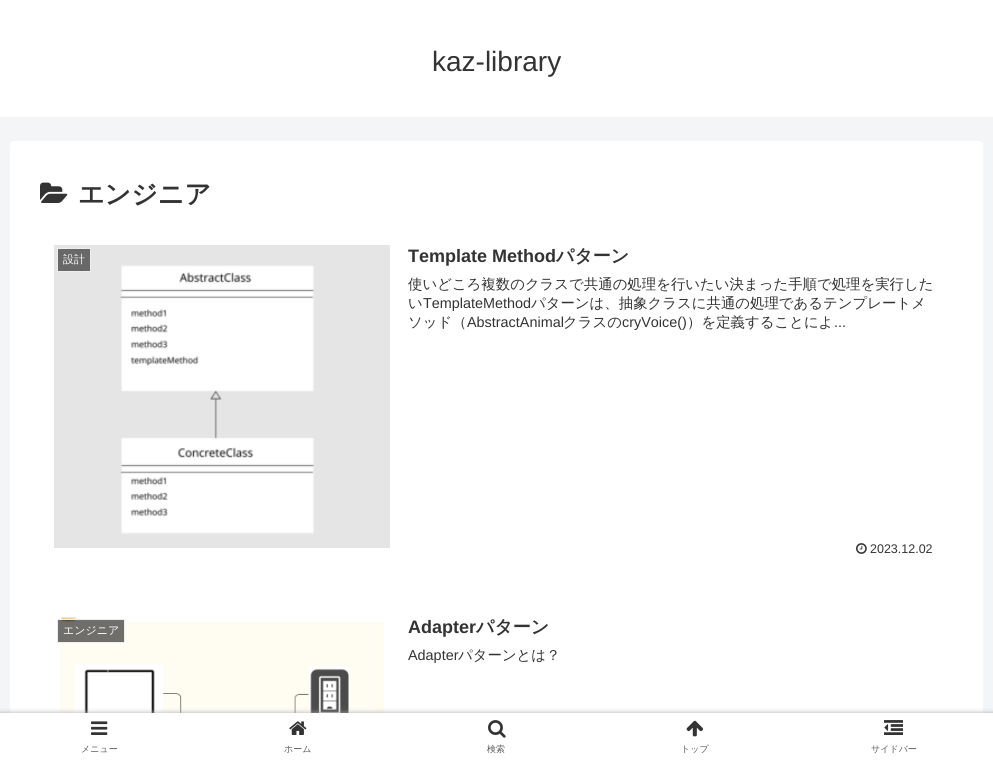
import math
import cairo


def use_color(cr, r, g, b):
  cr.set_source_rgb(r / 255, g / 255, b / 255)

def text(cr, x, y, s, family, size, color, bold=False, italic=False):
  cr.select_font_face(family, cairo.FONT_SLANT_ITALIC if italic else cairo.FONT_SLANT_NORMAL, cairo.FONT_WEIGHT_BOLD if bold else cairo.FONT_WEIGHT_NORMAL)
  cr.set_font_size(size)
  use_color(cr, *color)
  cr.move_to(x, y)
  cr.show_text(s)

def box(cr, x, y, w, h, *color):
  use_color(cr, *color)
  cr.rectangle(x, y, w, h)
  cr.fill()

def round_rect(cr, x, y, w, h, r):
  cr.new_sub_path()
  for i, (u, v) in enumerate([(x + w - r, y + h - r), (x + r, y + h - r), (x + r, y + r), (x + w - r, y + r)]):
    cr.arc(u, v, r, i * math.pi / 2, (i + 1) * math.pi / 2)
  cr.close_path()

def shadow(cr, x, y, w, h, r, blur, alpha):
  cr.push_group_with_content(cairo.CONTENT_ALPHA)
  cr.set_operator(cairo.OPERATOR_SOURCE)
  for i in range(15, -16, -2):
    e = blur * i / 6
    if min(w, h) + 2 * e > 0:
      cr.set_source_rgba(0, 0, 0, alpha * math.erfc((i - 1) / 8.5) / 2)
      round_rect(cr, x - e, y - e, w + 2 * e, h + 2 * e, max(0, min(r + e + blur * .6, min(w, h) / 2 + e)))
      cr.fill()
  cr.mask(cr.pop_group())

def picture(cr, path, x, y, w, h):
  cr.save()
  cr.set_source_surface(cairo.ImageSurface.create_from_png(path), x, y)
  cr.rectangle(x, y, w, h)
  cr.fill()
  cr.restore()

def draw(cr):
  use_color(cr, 244, 245, 247)
  cr.paint()
  box(cr, 0, 0, 993, 117, 255, 255, 255)
  round_rect(cr, 10, 141, 973, 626, 4)
  cr.fill()
  picture(cr, "img_01.png", 40, 182, 28, 21)
  picture(cr, "img_02.png", 54, 245, 336, 303)
  use_color(cr, 104, 104, 104)
  cr.rectangle(57.5, 248.5, 33, 23)
  cr.fill_preserve()
  use_color(cr, 238, 238, 238)
  cr.set_line_width(1)
  cr.stroke()
  picture(cr, "img_03.png", 856, 543, 11, 11)
  picture(cr, "img_04.png", 60, 616, 324, 97)
  cr.set_source_rgba(0.2, 0.2, 0.2, 0.7)
  cr.rectangle(57.5, 619.5, 67, 23)
  cr.fill_preserve()
  use_color(cr, 238, 238, 238)
  cr.stroke()
  use_color(cr, 169, 169, 169)
  shadow(cr, 0, 713, 993, 50, 0, 2.5, 1)
  box(cr, 0, 713, 993, 50, 255, 255, 255)
  picture(cr, "img_05.png", 91, 721, 17, 14)
  picture(cr, "img_06.png", 289, 721, 18, 14)
  picture(cr, "img_07.png", 488, 720, 18, 18)
  picture(cr, "img_08.png", 686, 720, 17, 17)
  picture(cr, "img_09.png", 884, 720, 19, 15)
  text(cr, 432, 71, "kaz-library", "Liberation Sans", 28, (51, 51, 51))
  text(cr, 78, 203, "エンジニア", "WenQuanYi Zen Hei", 26, (51, 51, 51), bold=True)
  text(cr, 63, 263, "設計", "WenQuanYi Zen Hei Medium", 11, (255, 255, 255))
  text(cr, 408, 262, "Template Method", "Liberation Sans", 18, (51, 51, 51), bold=True)
  text(cr, 556, 262, "パターン", "WenQuanYi Zen Hei", 18, (51, 51, 51), bold=True)
  text(cr, 408, 289, "使いどころ複数のクラスで共通の処理を行いたい決まった手順で処理を実行した", "WenQuanYi Zen Hei Medium", 14.4, (51, 51, 51))
  text(cr, 408, 308, "い", "WenQuanYi Zen Hei Medium", 14.4, (51, 51, 51))
  text(cr, 423, 308, "TemplateMethod", "Liberation Sans", 14.4, (51, 51, 51))
  text(cr, 531, 308, "パターンは、抽象クラスに共通の処理であるテンプレートメ", "WenQuanYi Zen Hei Medium", 14.4, (51, 51, 51))
  text(cr, 408, 327, "ソッド（", "WenQuanYi Zen Hei Medium", 14.4, (51, 51, 51))
  text(cr, 467, 327, "AbstractAnimal", "Liberation Sans", 14.4, (51, 51, 51))
  text(cr, 563, 327, "クラスの", "WenQuanYi Zen Hei Medium", 14.4, (51, 51, 51))
  text(cr, 622, 327, "cryVoice()", "Liberation Sans", 14.4, (51, 51, 51))
  text(cr, 687, 327, "）を定義することによ", "WenQuanYi Zen Hei Medium", 14.4, (51, 51, 51))
  text(cr, 834, 327, "...", "Liberation Sans", 14.4, (51, 51, 51))
  text(cr, 870, 553, "2023.12.02", "Liberation Sans", 12.5, (51, 51, 51))
  text(cr, 63, 634, "エンジニア", "WenQuanYi Zen Hei Medium", 11, (255, 255, 255))
  text(cr, 408, 633, "Adapter", "Liberation Sans", 18, (51, 51, 51), bold=True)
  text(cr, 476, 633, "パターン", "WenQuanYi Zen Hei", 18, (51, 51, 51), bold=True)
  text(cr, 408, 660, "Adapter", "Liberation Sans", 14.4, (51, 51, 51))
  text(cr, 458, 660, "パターンとは？", "WenQuanYi Zen Hei Medium", 14.4, (51, 51, 51))
  text(cr, 81, 752, "メニュー", "WenQuanYi Zen Hei Medium", 9, (92, 92, 92))
  text(cr, 284, 752, "ホーム", "WenQuanYi Zen Hei Medium", 9, (92, 92, 92))
  text(cr, 487, 752, "検索", "WenQuanYi Zen Hei Medium", 9, (92, 92, 92))
  text(cr, 681, 752, "トップ", "WenQuanYi Zen Hei Medium", 9, (92, 92, 92))
  text(cr, 871, 752, "サイドバー", "WenQuanYi Zen Hei Medium", 9, (92, 92, 92))


surface = cairo.ImageSurface(cairo.FORMAT_RGB24, 993, 763)
cr = cairo.Context(surface)
options = cairo.FontOptions()
options.set_hint_metrics(cairo.HINT_METRICS_OFF)
options.set_hint_style(cairo.HINT_STYLE_NONE)
cr.set_font_options(options)
cr.set_miter_limit(4)
draw(cr)
surface.write_to_png("out.png")
